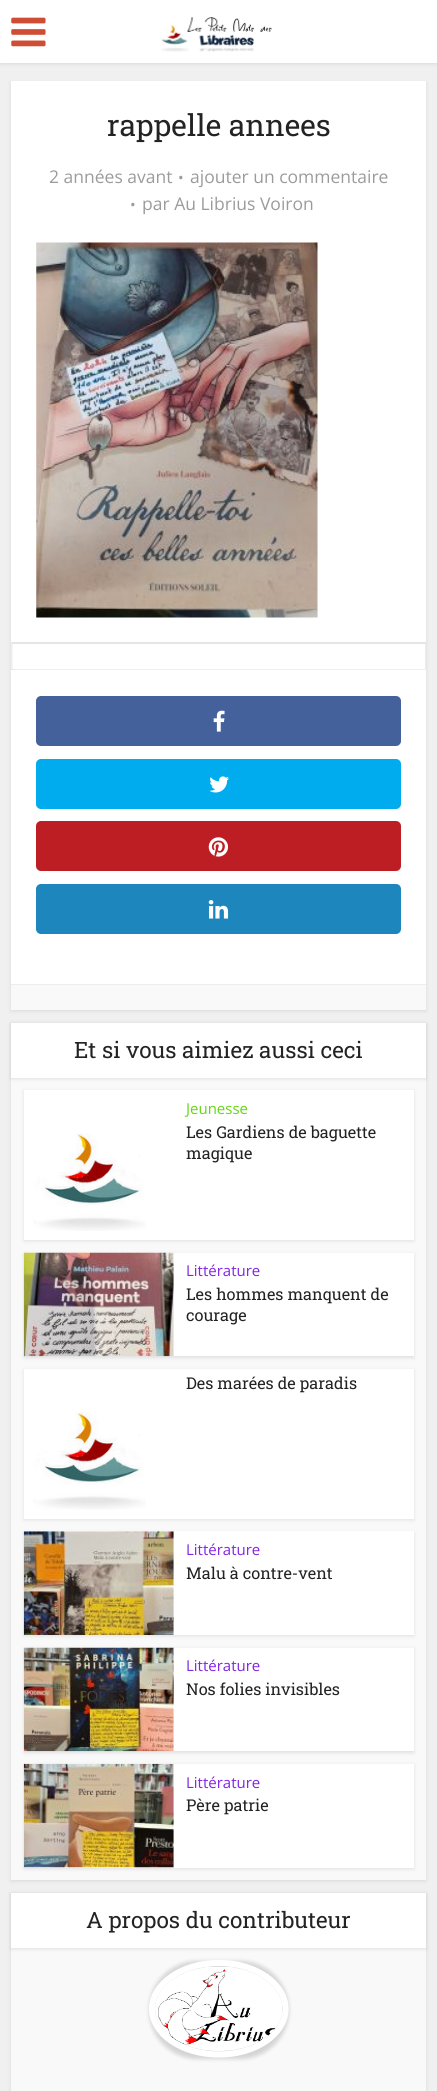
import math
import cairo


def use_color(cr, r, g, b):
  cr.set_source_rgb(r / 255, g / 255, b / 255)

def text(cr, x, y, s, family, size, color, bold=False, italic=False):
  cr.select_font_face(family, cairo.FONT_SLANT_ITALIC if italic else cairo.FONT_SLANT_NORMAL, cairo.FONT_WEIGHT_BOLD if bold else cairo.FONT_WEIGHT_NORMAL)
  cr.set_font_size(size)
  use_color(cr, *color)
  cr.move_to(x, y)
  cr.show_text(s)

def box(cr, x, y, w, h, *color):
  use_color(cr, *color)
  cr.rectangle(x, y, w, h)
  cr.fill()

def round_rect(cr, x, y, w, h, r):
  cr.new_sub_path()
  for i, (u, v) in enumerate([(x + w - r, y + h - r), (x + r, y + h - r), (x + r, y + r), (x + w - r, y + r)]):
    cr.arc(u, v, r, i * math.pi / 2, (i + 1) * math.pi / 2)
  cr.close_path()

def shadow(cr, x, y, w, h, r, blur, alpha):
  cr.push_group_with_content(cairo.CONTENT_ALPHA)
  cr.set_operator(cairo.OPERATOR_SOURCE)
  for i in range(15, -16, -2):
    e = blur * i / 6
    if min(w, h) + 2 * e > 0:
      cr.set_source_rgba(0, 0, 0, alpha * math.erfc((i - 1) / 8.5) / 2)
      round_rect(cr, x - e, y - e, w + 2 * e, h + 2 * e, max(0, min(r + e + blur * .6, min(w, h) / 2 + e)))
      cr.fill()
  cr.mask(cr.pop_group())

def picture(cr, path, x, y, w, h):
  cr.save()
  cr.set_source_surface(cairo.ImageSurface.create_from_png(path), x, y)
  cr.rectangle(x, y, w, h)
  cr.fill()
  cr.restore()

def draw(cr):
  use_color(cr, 240, 240, 240)
  cr.paint()
  use_color(cr, 0, 0, 0)
  shadow(cr, 0, 1, 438, 63, 0, 2, 0.1)
  box(cr, 0, 0, 437, 63, 255, 255, 255)
  picture(cr, "img_01.png", 11, 17, 35, 30)
  picture(cr, "img_02.png", 161, 17, 111, 35)
  use_color(cr, 0, 0, 0)
  shadow(cr, 11, 83, 415, 928, 0, 2, 0.1)
  box(cr, 11, 81, 415, 903, 255, 255, 255)
  picture(cr, "img_03.png", 36, 242, 282, 376)
  use_color(cr, 230, 230, 230)
  cr.new_path()
  cr.move_to(11, 642)
  cr.line_to(426, 642)
  cr.line_to(426, 644)
  cr.line_to(12, 644)
  cr.close_path()
  cr.fill()
  cr.set_source_rgba(0, 0, 0, 0.07)
  cr.new_path()
  cr.move_to(11, 670)
  cr.line_to(11, 642.5)
  cr.line_to(12.5, 644)
  cr.line_to(12.5, 670)
  cr.close_path()
  cr.fill()
  use_color(cr, 237, 237, 237)
  cr.new_path()
  cr.move_to(426, 644)
  cr.line_to(426, 670)
  cr.line_to(425, 669)
  cr.line_to(425, 644)
  cr.close_path()
  cr.fill()
  cr.set_source_rgba(0, 0, 0, 0.07)
  cr.new_path()
  cr.move_to(426, 670)
  cr.line_to(12, 670)
  cr.line_to(12, 669)
  cr.line_to(425, 669)
  cr.close_path()
  cr.fill()
  use_color(cr, 69, 97, 156)
  round_rect(cr, 36, 696, 365, 50, 5)
  cr.fill()
  picture(cr, "img_04.png", 213, 710, 12, 22)
  use_color(cr, 0, 172, 238)
  round_rect(cr, 36, 759, 365, 50, 5)
  cr.fill()
  picture(cr, "img_05.png", 209, 776, 20, 17)
  use_color(cr, 189, 30, 35)
  round_rect(cr, 36, 821, 365, 50, 5)
  cr.fill()
  picture(cr, "img_06.png", 208, 837, 20, 20)
  use_color(cr, 29, 135, 189)
  round_rect(cr, 36, 884, 365, 50, 5)
  cr.fill()
  picture(cr, "img_07.png", 208, 900, 21, 19)
  box(cr, 11, 985, 415, 25, 249, 249, 249)
  box(cr, 11, 984, 415, 1, 237, 237, 237)
  use_color(cr, 0, 0, 0)
  shadow(cr, 11, 1024, 415, 857, 0, 2, 0.1)
  box(cr, 11, 1078, 415, 802, 249, 249, 249)
  use_color(cr, 0, 0, 0)
  shadow(cr, 11, 1024, 415, 55, 0, 2, 0.1)
  box(cr, 11, 1023, 415, 55, 255, 255, 255)
  use_color(cr, 0, 0, 0)
  shadow(cr, 24, 1091, 390, 150, 0, 2, 0.1)
  box(cr, 24, 1090, 390, 150, 255, 255, 255)
  picture(cr, "img_08.png", 33, 1133, 113, 98)
  use_color(cr, 0, 0, 0)
  shadow(cr, 24, 1254, 390, 104, 0, 2, 0.1)
  box(cr, 173, 1253, 241, 103, 255, 255, 255)
  picture(cr, "img_09.png", 23, 1252, 151, 105)
  use_color(cr, 0, 0, 0)
  shadow(cr, 24, 1370, 390, 150, 0, 2, 0.1)
  box(cr, 24, 1369, 390, 150, 255, 255, 255)
  picture(cr, "img_10.png", 33, 1412, 113, 98)
  use_color(cr, 0, 0, 0)
  shadow(cr, 24, 1533, 390, 103, 0, 2, 0.1)
  box(cr, 24, 1531, 390, 104, 255, 255, 255)
  picture(cr, "img_11.png", 23, 1531, 151, 104)
  use_color(cr, 0, 0, 0)
  shadow(cr, 24, 1649, 390, 104, 0, 2, 0.1)
  box(cr, 173, 1648, 241, 103, 255, 255, 255)
  picture(cr, "img_12.png", 23, 1647, 151, 105)
  use_color(cr, 0, 0, 0)
  shadow(cr, 24, 1765, 390, 104, 0, 2, 0.1)
  box(cr, 24, 1764, 390, 104, 255, 255, 255)
  picture(cr, "img_13.png", 23, 1763, 151, 105)
  use_color(cr, 0, 0, 0)
  shadow(cr, 11, 1894, 415, 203, 0, 2, 0.1)
  box(cr, 11, 1948, 415, 143, 249, 249, 249)
  use_color(cr, 0, 0, 0)
  shadow(cr, 11, 1894, 415, 55, 0, 2, 0.1)
  box(cr, 11, 1893, 415, 55, 255, 255, 255)
  use_color(cr, 0, 0, 0)
  shadow(cr, 149, 1961, 140, 98, 49, 2, 0.15)
  cr.new_path()
  cr.move_to(219, 1963)
  cr.curve_to(255.5, 1963, 285.5, 1983.5, 285.5, 2009)
  cr.curve_to(285.5, 2034, 255.5, 2054.5, 219, 2054.5)
  cr.curve_to(182, 2054.5, 152, 2034, 152, 2009)
  cr.curve_to(152, 1983.5, 182, 1963, 219, 1963)
  cr.close_path()
  use_color(cr, 255, 255, 255)
  cr.set_line_width(6.2)
  cr.stroke()
  picture(cr, "img_14.png", 155, 1967, 127, 84)
  text(cr, 107, 136, "rappelle annees", "Roboto Slab", 30, (35, 35, 35))
  text(cr, 49, 183, "2 années avant", "Open Sans", 17.5, (155, 155, 155))
  text(cr, 178, 183, "•", "Open Sans", 15, (155, 155, 155))
  text(cr, 190, 183, "ajouter un commentaire", "Open Sans", 17.5, (155, 155, 155))
  text(cr, 130, 210, "•", "Open Sans", 15, (155, 155, 155))
  text(cr, 142, 210, "par Au Librius Voiron", "Open Sans", 17.5, (155, 155, 155))
  text(cr, 74, 1058, "Et si vous aimiez aussi ceci", "Roboto Slab", 22.5, (35, 35, 35))
  text(cr, 186, 1114, "Jeunesse", "Open Sans", 15, (101, 214, 21))
  text(cr, 186, 1138, "Les Gardiens de baguette", "Roboto Slab", 16.25, (35, 35, 35))
  text(cr, 186, 1159, "magique", "Roboto Slab", 16.25, (35, 35, 35))
  text(cr, 186, 1276, "Littérature", "Open Sans", 15, (130, 36, 227))
  text(cr, 186, 1300, "Les hommes manquent de", "Roboto Slab", 16.25, (35, 35, 35))
  text(cr, 186, 1321, "courage", "Roboto Slab", 16.25, (35, 35, 35))
  text(cr, 186, 1389, "Des marées de paradis", "Roboto Slab", 16.25, (35, 35, 35))
  text(cr, 186, 1555, "Littérature", "Open Sans", 15, (130, 36, 227))
  text(cr, 186, 1579, "Malu à contre-vent", "Roboto Slab", 16.25, (35, 35, 35))
  text(cr, 186, 1671, "Littérature", "Open Sans", 15, (130, 36, 227))
  text(cr, 186, 1695, "Nos folies invisibles", "Roboto Slab", 16.25, (35, 35, 35))
  text(cr, 186, 1788, "Littérature", "Open Sans", 15, (130, 36, 227))
  text(cr, 186, 1811, "Père patrie", "Roboto Slab", 16.25, (35, 35, 35))
  text(cr, 86, 1928, "A propos du contributeur", "Roboto Slab", 22.5, (35, 35, 35))


surface = cairo.ImageSurface(cairo.FORMAT_RGB24, 437, 2091)
cr = cairo.Context(surface)
options = cairo.FontOptions()
options.set_hint_metrics(cairo.HINT_METRICS_OFF)
options.set_hint_style(cairo.HINT_STYLE_NONE)
cr.set_font_options(options)
cr.set_miter_limit(4)
draw(cr)
surface.write_to_png("out.png")
